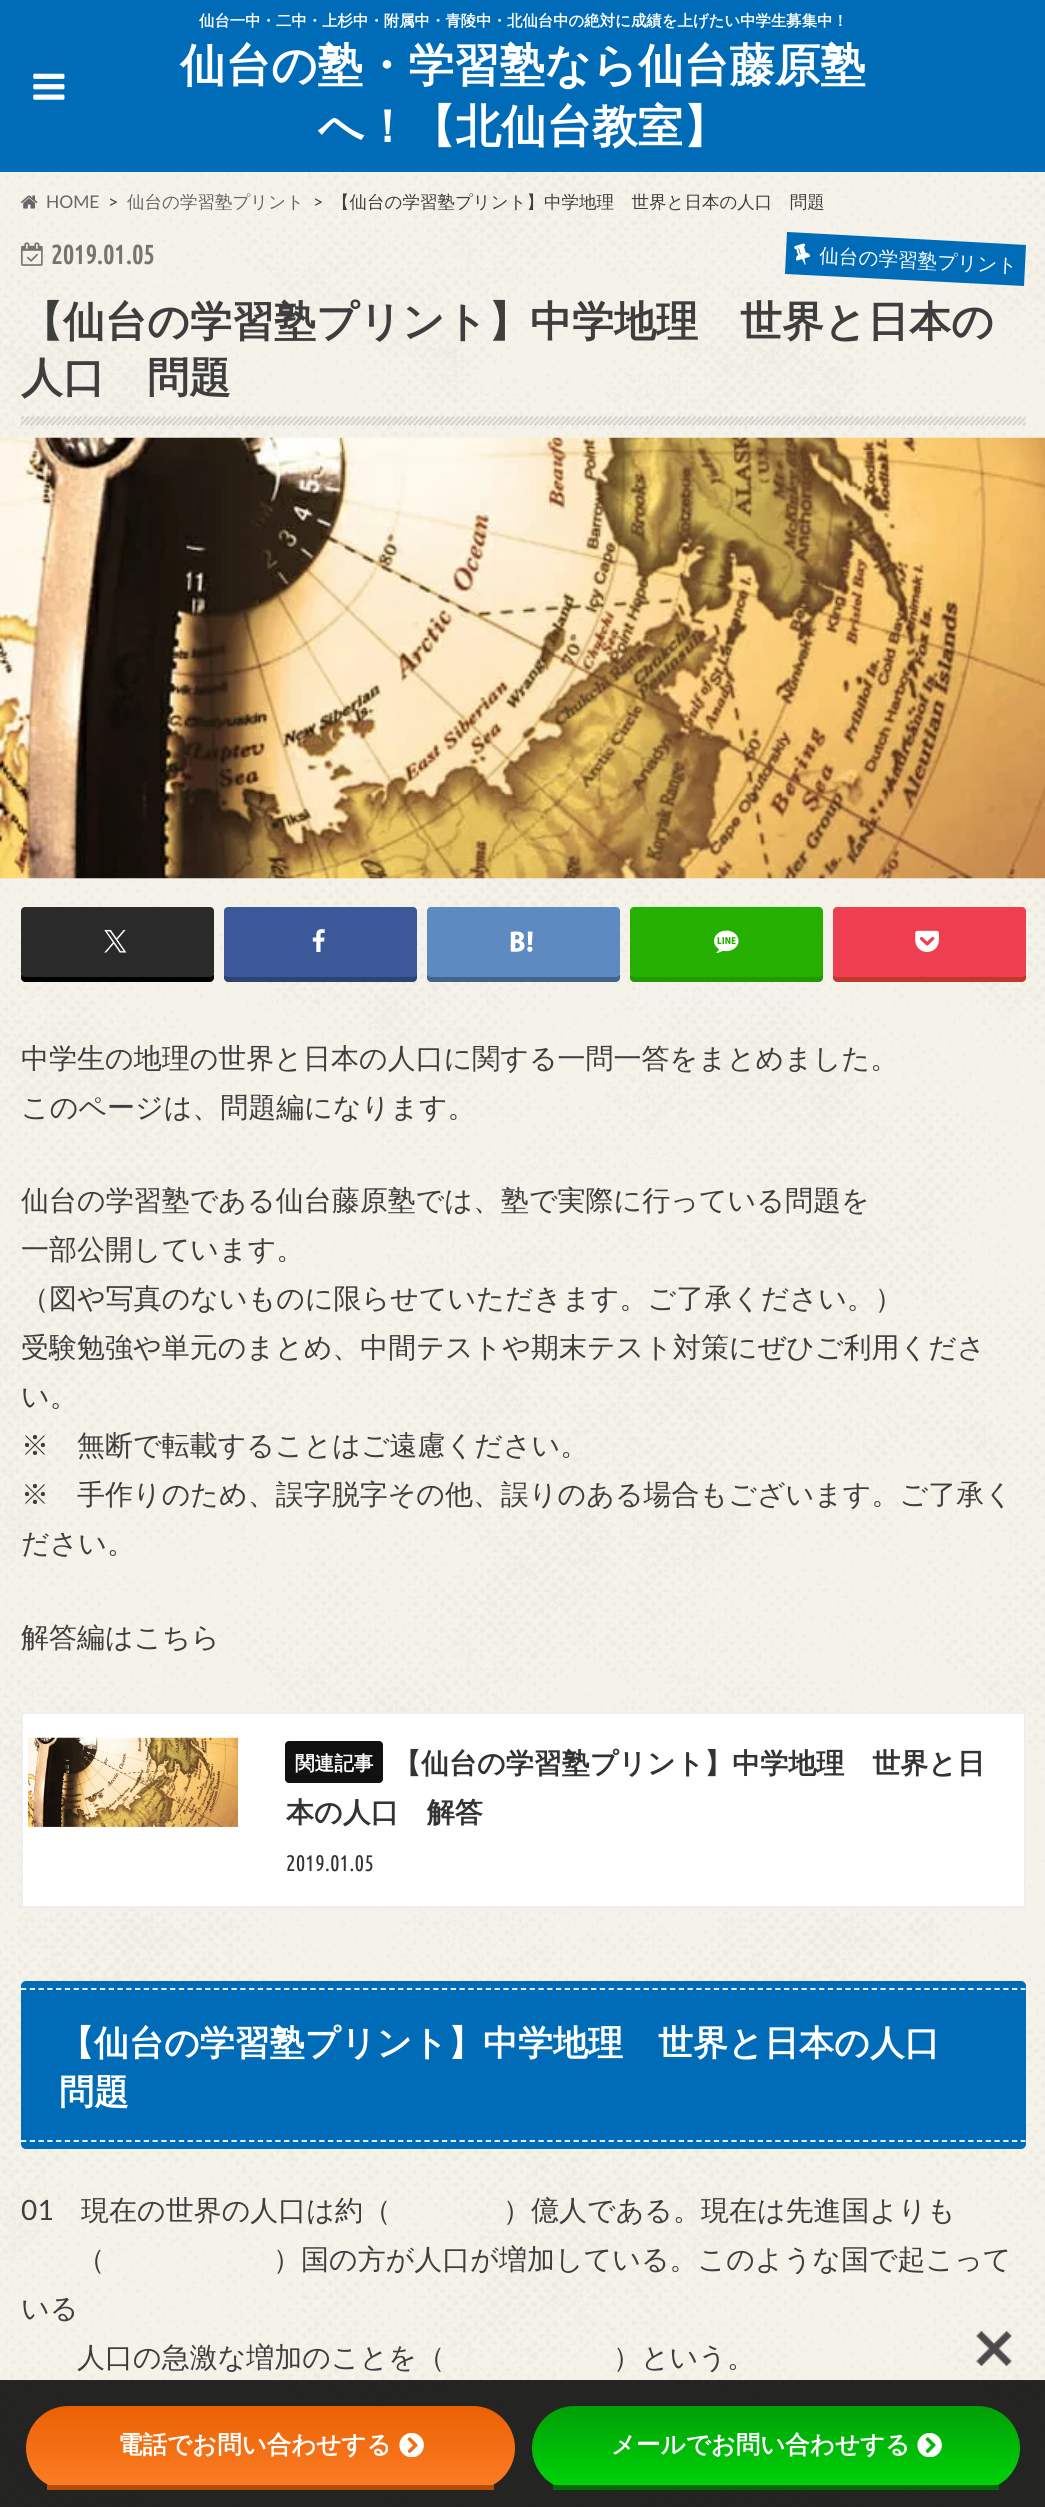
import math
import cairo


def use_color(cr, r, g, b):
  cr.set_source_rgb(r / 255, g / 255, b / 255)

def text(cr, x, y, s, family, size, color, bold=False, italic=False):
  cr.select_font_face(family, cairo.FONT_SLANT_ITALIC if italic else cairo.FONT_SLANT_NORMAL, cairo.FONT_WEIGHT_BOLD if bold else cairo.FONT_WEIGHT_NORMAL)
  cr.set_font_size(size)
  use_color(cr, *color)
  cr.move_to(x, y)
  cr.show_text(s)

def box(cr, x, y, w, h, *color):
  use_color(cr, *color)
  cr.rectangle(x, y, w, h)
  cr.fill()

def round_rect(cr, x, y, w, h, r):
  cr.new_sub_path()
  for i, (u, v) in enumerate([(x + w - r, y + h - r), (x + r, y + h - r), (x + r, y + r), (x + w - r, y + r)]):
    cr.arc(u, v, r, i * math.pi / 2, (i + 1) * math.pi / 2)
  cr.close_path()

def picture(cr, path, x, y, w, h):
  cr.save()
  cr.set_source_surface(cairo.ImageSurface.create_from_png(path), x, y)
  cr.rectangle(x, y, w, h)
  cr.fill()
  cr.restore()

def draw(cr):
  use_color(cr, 255, 255, 255)
  cr.paint()
  picture(cr, "img_01.png", 0, 172, 1045, 2335)
  box(cr, 0, 0, 1045, 172, 0, 108, 183)
  picture(cr, "img_02.png", 33, 73, 32, 27)
  picture(cr, "img_03.png", 20, 195, 18, 14)
  picture(cr, "img_04.png", 21, 242, 22, 24)
  cr.new_path()
  cr.move_to(787, 232)
  cr.line_to(1026, 245)
  cr.line_to(1024, 286)
  cr.line_to(785, 274)
  cr.close_path()
  cr.fill()
  picture(cr, "img_05.png", 794, 243, 17, 22)
  picture(cr, "img_06.png", 21, 416, 1005, 10)
  picture(cr, "img_07.png", 0, 437, 1045, 442)
  use_color(cr, 0, 0, 0)
  cr.new_path()
  cr.move_to(21, 973)
  cr.line_to(21, 978)
  cr.curve_to(21, 980, 23, 982, 25, 982)
  cr.line_to(210, 982)
  cr.curve_to(212, 982, 214, 980, 214, 978)
  cr.line_to(214, 916)
  cr.line_to(214, 914)
  cr.line_to(214, 973)
  cr.curve_to(214, 975, 212, 976, 210, 976)
  cr.line_to(24, 976)
  cr.curve_to(23, 976, 21, 975, 21, 973)
  cr.close_path()
  cr.fill()
  use_color(cr, 42, 42, 42)
  round_rect(cr, 21, 907, 193, 70, 4)
  cr.fill()
  picture(cr, "img_08.png", 104, 929, 23, 24)
  use_color(cr, 44, 67, 115)
  cr.new_path()
  cr.move_to(224, 973)
  cr.line_to(224, 978)
  cr.curve_to(224, 980, 226, 982, 228, 982)
  cr.line_to(413, 982)
  cr.curve_to(415, 982, 417, 980, 417, 978)
  cr.line_to(417, 916)
  cr.line_to(416, 914)
  cr.line_to(416, 973)
  cr.curve_to(416, 975, 415, 976, 413, 976)
  cr.line_to(228, 976)
  cr.curve_to(226, 976, 224, 975, 224, 973)
  cr.close_path()
  cr.fill()
  use_color(cr, 59, 89, 152)
  round_rect(cr, 224, 907, 193, 70, 4)
  cr.fill()
  picture(cr, "img_09.png", 312, 929, 13, 23)
  use_color(cr, 67, 99, 139)
  cr.new_path()
  cr.move_to(427, 973)
  cr.line_to(427, 978)
  cr.curve_to(427, 980, 429, 982, 431, 982)
  cr.line_to(616, 982)
  cr.curve_to(618, 982, 620, 980, 620, 978)
  cr.line_to(620, 916)
  cr.line_to(620, 914)
  cr.line_to(620, 973)
  cr.curve_to(620, 975, 618, 976, 616, 976)
  cr.line_to(430, 976)
  cr.curve_to(429, 976, 427, 975, 427, 973)
  cr.close_path()
  cr.fill()
  use_color(cr, 93, 138, 193)
  round_rect(cr, 427, 907, 193, 70, 4)
  cr.fill()
  picture(cr, "img_10.png", 510, 931, 23, 21)
  use_color(cr, 33, 153, 0)
  cr.new_path()
  cr.move_to(630, 973)
  cr.line_to(630, 978)
  cr.curve_to(630, 980, 632, 982, 634, 982)
  cr.line_to(819, 982)
  cr.curve_to(821, 982, 823, 980, 823, 978)
  cr.line_to(823, 916)
  cr.line_to(822, 914)
  cr.line_to(822, 973)
  cr.curve_to(822, 975, 821, 976, 819, 976)
  cr.line_to(634, 976)
  cr.curve_to(632, 976, 630, 975, 630, 973)
  cr.close_path()
  cr.fill()
  use_color(cr, 37, 175, 0)
  round_rect(cr, 630, 907, 193, 70, 4)
  cr.fill()
  picture(cr, "img_11.png", 714, 930, 25, 23)
  use_color(cr, 192, 57, 43)
  cr.new_path()
  cr.move_to(833, 973)
  cr.line_to(833, 978)
  cr.curve_to(833, 980, 835, 982, 837, 982)
  cr.line_to(1022, 982)
  cr.curve_to(1024, 982, 1026, 980, 1026, 978)
  cr.line_to(1026, 916)
  cr.line_to(1026, 914)
  cr.line_to(1026, 973)
  cr.curve_to(1026, 975, 1024, 976, 1022, 976)
  cr.line_to(836, 976)
  cr.curve_to(835, 976, 833, 975, 833, 973)
  cr.close_path()
  cr.fill()
  use_color(cr, 240, 62, 81)
  round_rect(cr, 833, 907, 193, 70, 4)
  cr.fill()
  picture(cr, "img_12.png", 915, 930, 24, 22)
  cr.save()
  cr.rectangle(21, 1033, 1005, 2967)
  cr.clip()
  use_color(cr, 239, 239, 239)
  cr.new_path()
  cr.move_to(23, 1908)
  cr.line_to(23, 1909)
  cr.line_to(1027, 1909)
  cr.line_to(1027, 1713)
  cr.line_to(1026, 1713)
  cr.line_to(1026, 1908)
  cr.close_path()
  cr.fill()
  cr.restore()
  use_color(cr, 255, 255, 255)
  cr.rectangle(22, 1713, 1003, 194)
  cr.fill_preserve()
  use_color(cr, 238, 238, 238)
  cr.stroke()
  picture(cr, "img_13.png", 28, 1737, 210, 90)
  use_color(cr, 17, 17, 17)
  round_rect(cr, 285, 1741, 98, 42, 4)
  cr.fill()
  use_color(cr, 0, 108, 183)
  round_rect(cr, 21, 1981, 1005, 168, 5)
  cr.fill()
  cr.new_path()
  cr.move_to(21, 1989)
  cr.line_to(1025.5, 1989)
  use_color(cr, 255, 255, 255)
  cr.set_line_width(1.8)
  cr.set_dash([5.25, 3.52])
  cr.stroke()
  cr.new_path()
  cr.move_to(21, 2141)
  cr.line_to(1025.5, 2141)
  cr.stroke()
  cr.set_source_rgba(0, 0, 0, 0.85)
  cr.rectangle(0, 2380, 1045, 127)
  cr.fill()
  picture(cr, "img_14.png", 976, 2331, 36, 36)
  cr.save()
  round_rect(cr, 26, 2406, 489, 84, 42)
  cr.clip()
  gradient = cairo.LinearGradient(270, 2406, 270, 2485)
  gradient.add_color_stop_rgba(0, 0.918, 0.38, 0.012, 1)
  gradient.add_color_stop_rgba(1, 0.988, 0.486, 0.141, 1)
  cr.set_source(gradient)
  cr.new_path()
  cr.move_to(68, 2406)
  cr.line_to(473, 2406)
  cr.curve_to(496, 2406, 515, 2425, 515, 2448)
  cr.line_to(515, 2485)
  cr.line_to(26, 2485)
  cr.line_to(26, 2448)
  cr.curve_to(26, 2425, 45, 2406, 68, 2406)
  cr.close_path()
  cr.fill()
  cr.restore()
  box(cr, 47, 2485, 447, 5, 184, 76, 2)
  picture(cr, "img_15.png", 399, 2433, 25, 24)
  cr.save()
  round_rect(cr, 532, 2406, 488, 84, 42)
  cr.clip()
  gradient = cairo.LinearGradient(776, 2406, 776, 2485)
  gradient.add_color_stop_rgba(0, 0, 0.624, 0.027, 1)
  gradient.add_color_stop_rgba(1, 0, 0.824, 0.035, 1)
  cr.set_source(gradient)
  cr.new_path()
  cr.move_to(574, 2406)
  cr.line_to(978, 2406)
  cr.curve_to(1001, 2406, 1020, 2425, 1020, 2448)
  cr.line_to(1020, 2485)
  cr.line_to(532, 2485)
  cr.line_to(532, 2448)
  cr.curve_to(532, 2425, 551, 2406, 574, 2406)
  cr.close_path()
  cr.fill()
  cr.restore()
  box(cr, 553, 2485, 446, 5, 0, 108, 5)
  picture(cr, "img_16.png", 917, 2433, 25, 24)
  text(cr, 199, 26, "仙台一中・二中・上杉中・附属中・青陵中・北仙台中の絶対に成績を上げたい中学生募集中！", "WenQuanYi Zen Hei", 15.4, (255, 255, 255), bold=True)
  text(cr, 180, 81, "仙台の塾・学習塾なら仙台藤原塾", "WenQuanYi Zen Hei", 45.5, (255, 255, 255), bold=True)
  text(cr, 318, 142, "へ！【北仙台教室】", "WenQuanYi Zen Hei", 45.5, (255, 255, 255), bold=True)
  text(cr, 46, 208, "HOME", "Lato", 17.5, (102, 102, 102))
  text(cr, 108, 208, ">", "Lato", 17.5, (62, 62, 62))
  text(cr, 127, 208, "仙台の学習塾プリント", "WenQuanYi Zen Hei Medium", 17.5, (102, 102, 102))
  text(cr, 313, 208, ">", "Lato", 17.5, (62, 62, 62))
  text(cr, 332, 208, "【仙台の学習塾プリント】中学地理　世界と日本の人口　問題", "WenQuanYi Zen Hei Medium", 17.5, (62, 62, 62))
  text(cr, 51, 264, "2019.01.05", "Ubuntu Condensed", 26.5, (116, 116, 113), bold=True)
  cr.save()
  cr.translate(819, 262)
  cr.rotate(3 * math.pi / 180)
  text(cr, 0, 0, "仙台の学習塾プリント", "WenQuanYi Zen Hei Medium", 19.6, (255, 255, 255))
  cr.restore()
  text(cr, 21, 336, "【仙台の学習塾プリント】中学地理　世界と日本の", "WenQuanYi Zen Hei", 42, (62, 62, 62), bold=True)
  text(cr, 21, 392, "人口　問題", "WenQuanYi Zen Hei", 42, (62, 62, 62), bold=True)
  text(cr, 21, 1068, "中学生の地理の世界と日本の人口に関する一問一答をまとめました。", "WenQuanYi Zen Hei Medium", 28, (62, 62, 62))
  text(cr, 21, 1117, "このページは、問題編になります。", "WenQuanYi Zen Hei Medium", 28, (62, 62, 62))
  text(cr, 21, 1210, "仙台の学習塾である仙台藤原塾では、塾で実際に行っている問題を", "WenQuanYi Zen Hei Medium", 28, (62, 62, 62))
  text(cr, 21, 1259, "一部公開しています。", "WenQuanYi Zen Hei Medium", 28, (62, 62, 62))
  text(cr, 21, 1308, "（図や写真のないものに限らせていただきます。ご了承ください。）", "WenQuanYi Zen Hei Medium", 28, (62, 62, 62))
  text(cr, 21, 1357, "受験勉強や単元のまとめ、中間テストや期末テスト対策にぜひご利用くださ", "WenQuanYi Zen Hei Medium", 28, (62, 62, 62))
  text(cr, 21, 1406, "い。", "WenQuanYi Zen Hei Medium", 28, (62, 62, 62))
  text(cr, 21, 1455, "※　無断で転載することはご遠慮ください。", "WenQuanYi Zen Hei Medium", 28, (62, 62, 62))
  text(cr, 21, 1504, "※　手作りのため、誤字脱字その他、誤りのある場合もございます。ご了承く", "WenQuanYi Zen Hei Medium", 28, (62, 62, 62))
  text(cr, 21, 1553, "ださい。", "WenQuanYi Zen Hei Medium", 28, (62, 62, 62))
  text(cr, 21, 1647, "解答編はこちら", "WenQuanYi Zen Hei Medium", 28, (62, 62, 62))
  text(cr, 295, 1770, "関連記事", "WenQuanYi Zen Hei", 19.6, (255, 255, 255), bold=True)
  text(cr, 393, 1773, "【仙台の学習塾プリント】中学地理　世界と日", "WenQuanYi Zen Hei", 28, (51, 51, 51), bold=True)
  text(cr, 286, 1822, "本の人口　解答", "WenQuanYi Zen Hei", 28, (51, 51, 51), bold=True)
  text(cr, 286, 1871, "2019.01.05", "Ubuntu Condensed", 22.5, (51, 51, 51))
  text(cr, 59, 2055, "【仙台の学習塾プリント】中学地理　世界と日本の人口", "WenQuanYi Zen Hei", 35, (255, 255, 255), bold=True)
  text(cr, 59, 2104, "問題", "WenQuanYi Zen Hei", 35, (255, 255, 255), bold=True)
  text(cr, 21, 2220, "01", "Lato", 28, (62, 62, 62))
  text(cr, 81, 2220, "現在の世界の人口は約（　　　　）億人である。現在は先進国よりも", "WenQuanYi Zen Hei Medium", 28, (62, 62, 62))
  text(cr, 77, 2269, "（　　　　　　）国の方が人口が増加している。このような国で起こって", "WenQuanYi Zen Hei Medium", 28, (62, 62, 62))
  text(cr, 21, 2318, "いる", "WenQuanYi Zen Hei Medium", 28, (62, 62, 62))
  text(cr, 77, 2367, "人口の急激な増加のことを（　　　　　　）という。", "WenQuanYi Zen Hei Medium", 28, (62, 62, 62))
  text(cr, 118, 2453, "電話でお問い合わせする", "WenQuanYi Zen Hei", 24.5, (255, 255, 255), bold=True)
  text(cr, 611, 2453, "メールでお問い合わせする", "WenQuanYi Zen Hei", 24.5, (255, 255, 255), bold=True)


surface = cairo.ImageSurface(cairo.FORMAT_RGB24, 1045, 2507)
cr = cairo.Context(surface)
options = cairo.FontOptions()
options.set_hint_metrics(cairo.HINT_METRICS_OFF)
options.set_hint_style(cairo.HINT_STYLE_NONE)
cr.set_font_options(options)
cr.set_miter_limit(4)
draw(cr)
surface.write_to_png("out.png")
